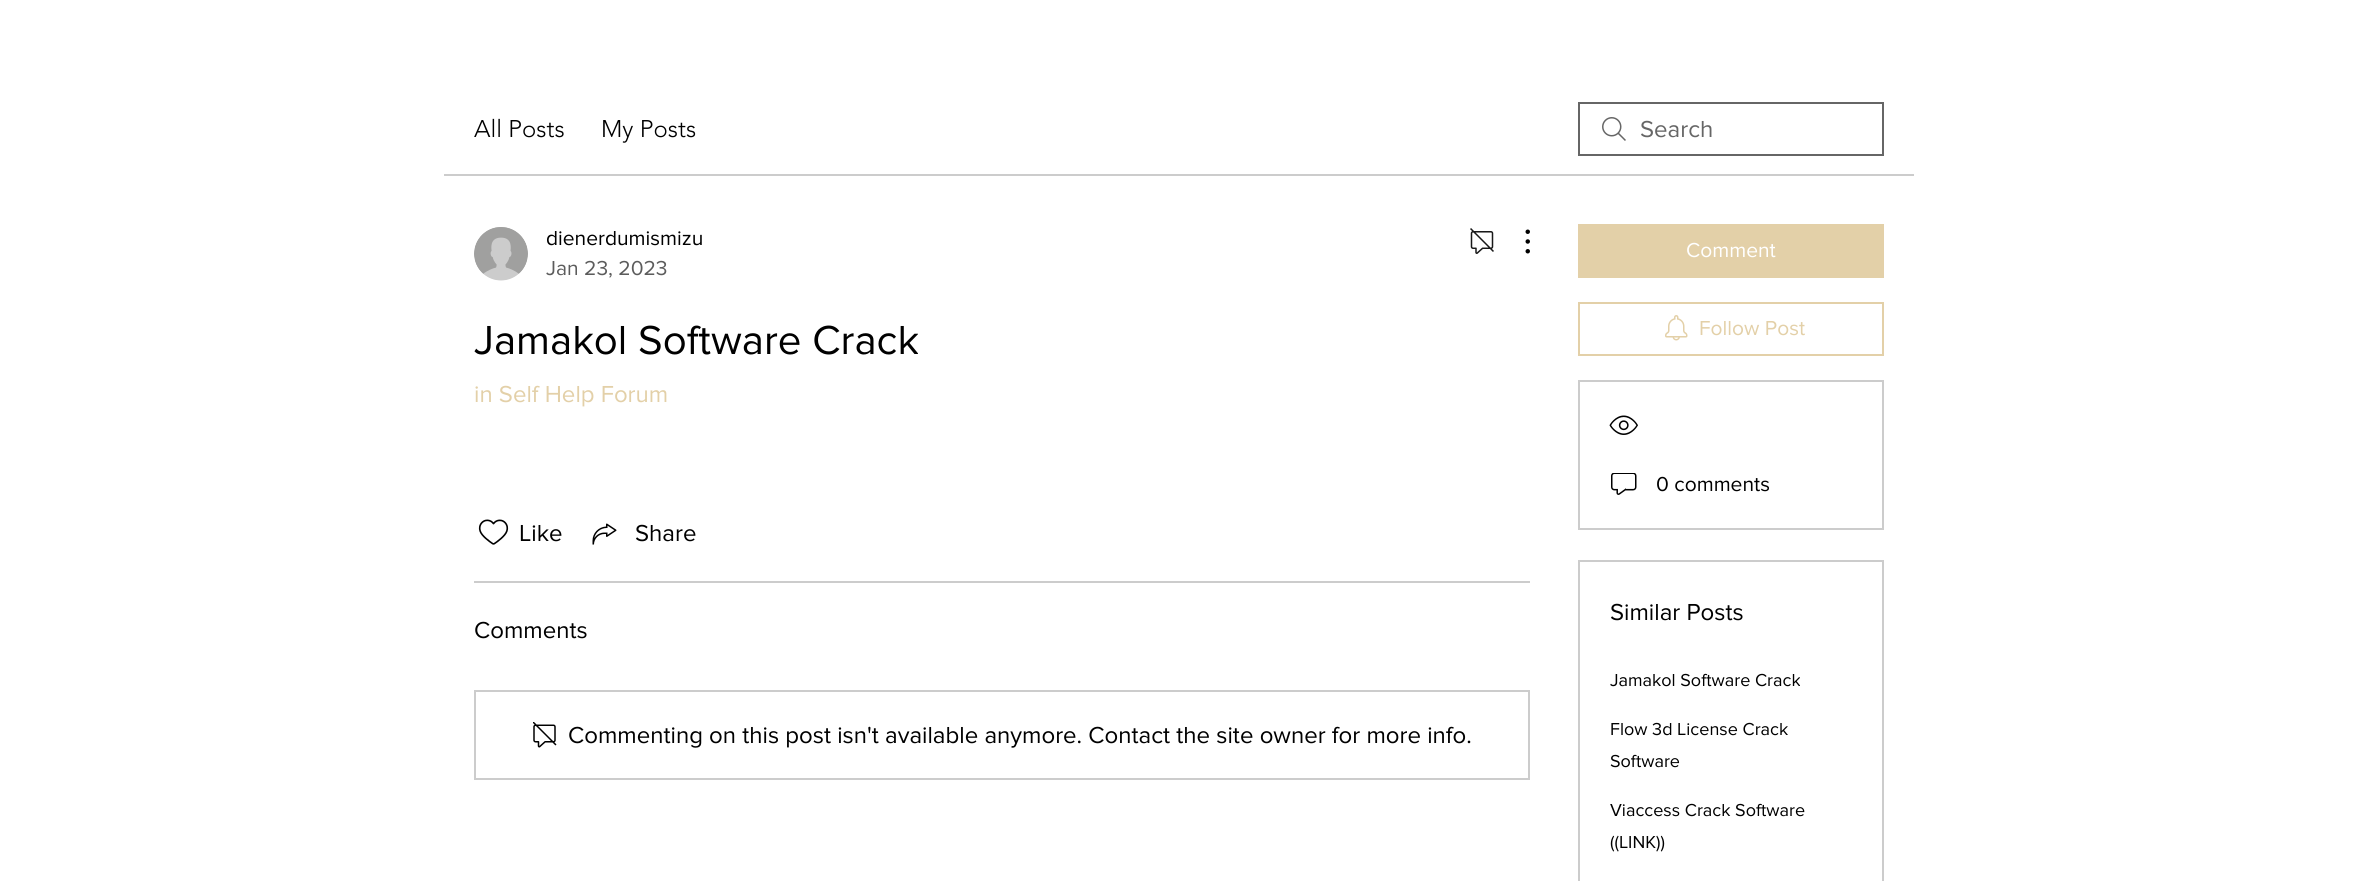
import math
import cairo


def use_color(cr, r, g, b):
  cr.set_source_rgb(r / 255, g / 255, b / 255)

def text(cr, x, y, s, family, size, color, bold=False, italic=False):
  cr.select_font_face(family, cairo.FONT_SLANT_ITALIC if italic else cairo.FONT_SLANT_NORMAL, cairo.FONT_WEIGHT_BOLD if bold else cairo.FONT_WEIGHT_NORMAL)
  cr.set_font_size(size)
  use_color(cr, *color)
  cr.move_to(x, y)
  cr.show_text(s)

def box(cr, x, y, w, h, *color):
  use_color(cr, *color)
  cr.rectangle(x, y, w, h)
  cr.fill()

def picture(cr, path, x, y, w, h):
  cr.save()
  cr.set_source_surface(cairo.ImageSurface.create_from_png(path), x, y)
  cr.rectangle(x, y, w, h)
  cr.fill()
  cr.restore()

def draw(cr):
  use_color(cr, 255, 255, 255)
  cr.paint()
  box(cr, 444, 174, 1470, 2, 204, 204, 204)
  picture(cr, "img_01.png", 1602, 117, 24, 24)
  cr.rectangle(1579, 103, 304, 52)
  use_color(cr, 102, 102, 102)
  cr.stroke()
  picture(cr, "img_02.png", 474, 227, 54, 54)
  picture(cr, "img_03.png", 1470, 228, 24, 26)
  picture(cr, "img_04.png", 1525, 229, 5, 25)
  picture(cr, "img_05.png", 478, 519, 31, 26)
  picture(cr, "img_06.png", 592, 523, 25, 22)
  box(cr, 474, 581, 1056, 2, 204, 204, 204)
  cr.rectangle(475, 691, 1054, 88)
  cr.stroke()
  picture(cr, "img_07.png", 533, 722, 24, 26)
  box(cr, 1578, 224, 306, 54, 227, 208, 168)
  cr.rectangle(1579, 303, 304, 52)
  cr.stroke()
  picture(cr, "img_08.png", 1665, 315, 23, 26)
  cr.rectangle(1579, 381, 304, 148)
  use_color(cr, 204, 204, 204)
  cr.stroke()
  picture(cr, "img_09.png", 1609, 415, 29, 20)
  picture(cr, "img_10.png", 1611, 473, 26, 22)
  cr.rectangle(1579, 561, 304, 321)
  cr.stroke()
  text(cr, 474, 137, "All Posts", "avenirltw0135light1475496 Light", 24, (0, 0, 0))
  text(cr, 601, 137, "My Posts", "avenirltw0135light1475496 Light", 24, (0, 0, 0))
  text(cr, 1640, 137, "Search", "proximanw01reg", 24, (102, 102, 102))
  text(cr, 546, 245, "dienerdumismizu", "proximanw01reg", 21, (0, 0, 0))
  text(cr, 546, 275, "Jan 23, 2023", "proximanw01reg", 21, (92, 92, 92))
  text(cr, 474, 354, "Jamakol Software Crack", "proximanw01reg", 42, (0, 0, 0))
  text(cr, 474, 402, "in Self Help Forum", "proximanw01reg", 24, (227, 208, 168))
  text(cr, 519, 541, "Like", "proximanw01reg", 24, (0, 0, 0))
  text(cr, 635, 541, "Share", "proximanw01reg", 24, (0, 0, 0))
  text(cr, 474, 638, "Comments", "proximanw01reg", 24, (0, 0, 0))
  text(cr, 568, 743, "Commenting on this post isn't available anymore. Contact the site owner for more info.", "proximanw01reg", 24, (0, 0, 0))
  text(cr, 1686, 257, "Comment", "proximanw01reg", 21, (255, 255, 255))
  text(cr, 1699, 335, "Follow Post", "proximanw01reg", 21, (227, 208, 168))
  text(cr, 1656, 491, "0 comments", "proximanw01reg", 21, (0, 0, 0))
  text(cr, 1610, 620, "Similar Posts", "proximanw01reg", 24, (0, 0, 0))
  text(cr, 1610, 686, "Jamakol Software Crack", "proximanw01reg", 18, (0, 0, 0))
  text(cr, 1610, 735, "Flow 3d License Crack", "proximanw01reg", 18, (0, 0, 0))
  text(cr, 1610, 767, "Software", "proximanw01reg", 18, (0, 0, 0))
  text(cr, 1610, 816, "Viaccess Crack Software", "proximanw01reg", 18, (0, 0, 0))
  text(cr, 1610, 848, "((LINK))", "proximanw01reg", 18, (0, 0, 0))


surface = cairo.ImageSurface(cairo.FORMAT_RGB24, 2357, 881)
cr = cairo.Context(surface)
options = cairo.FontOptions()
options.set_hint_metrics(cairo.HINT_METRICS_OFF)
options.set_hint_style(cairo.HINT_STYLE_NONE)
cr.set_font_options(options)
cr.set_miter_limit(4)
draw(cr)
surface.write_to_png("out.png")
